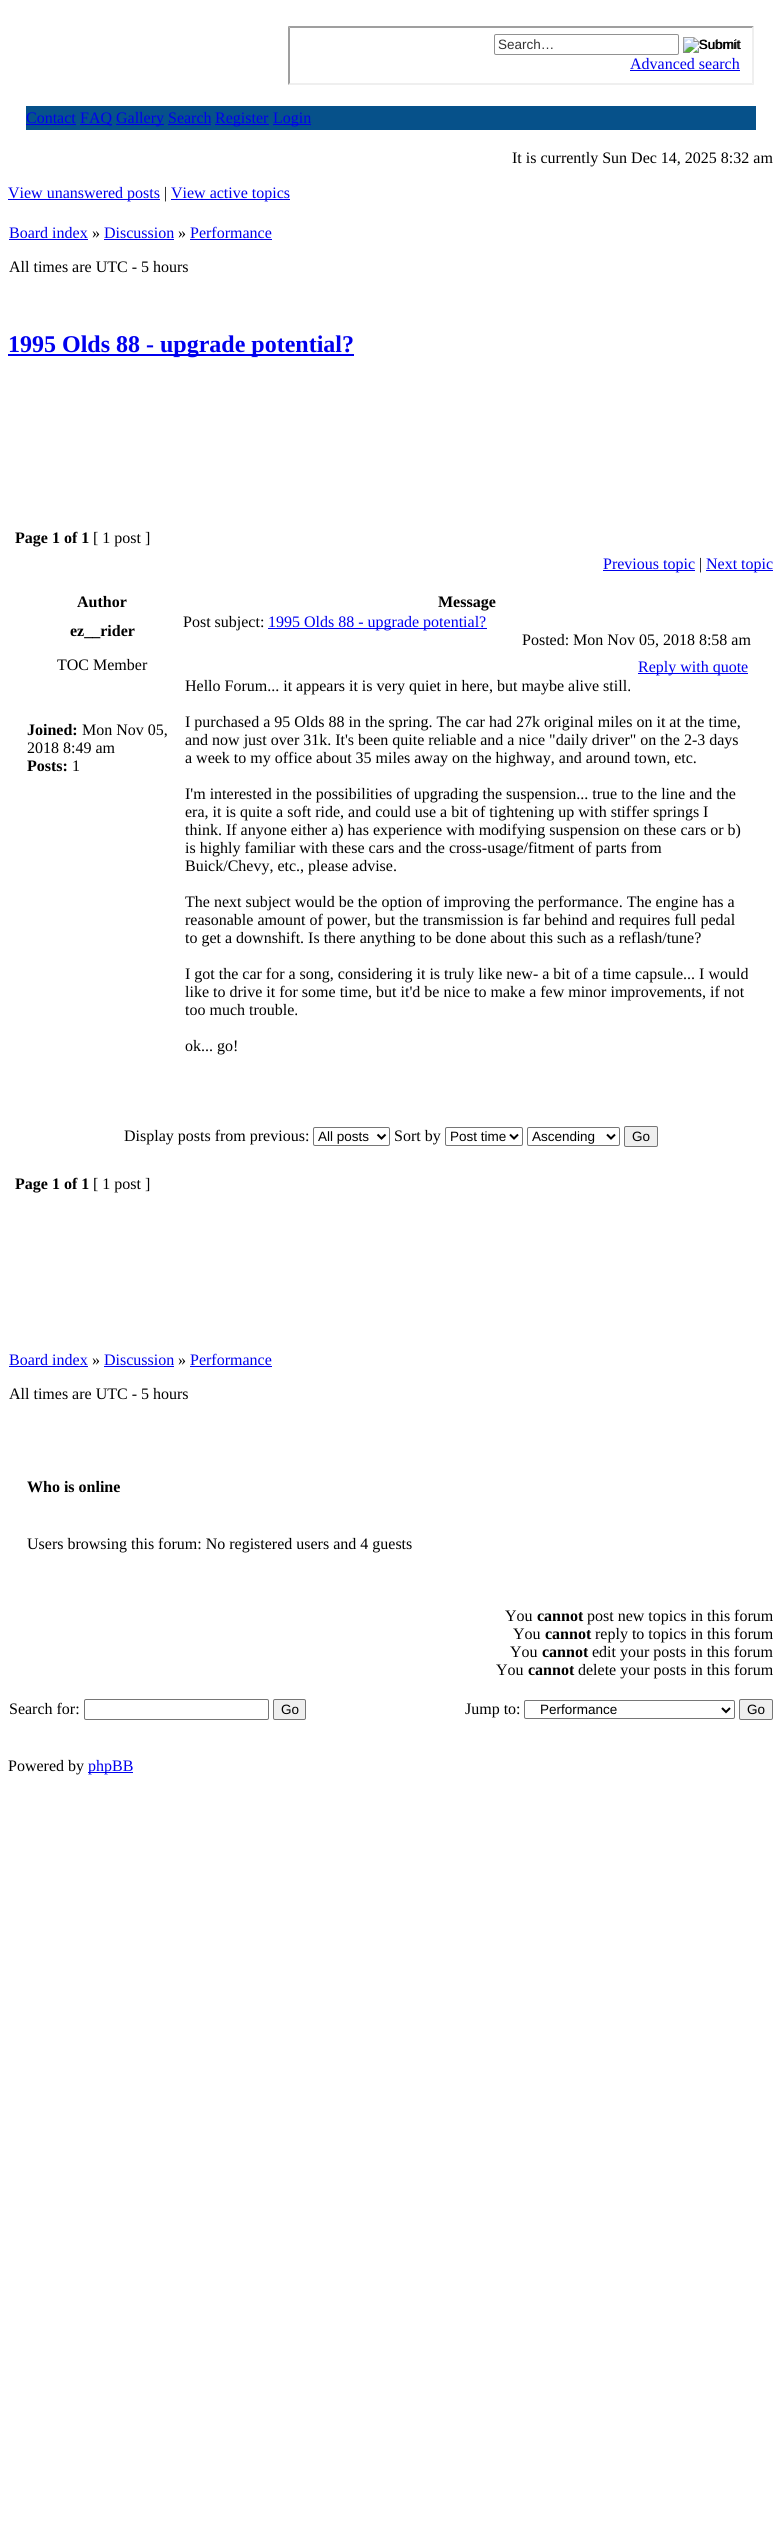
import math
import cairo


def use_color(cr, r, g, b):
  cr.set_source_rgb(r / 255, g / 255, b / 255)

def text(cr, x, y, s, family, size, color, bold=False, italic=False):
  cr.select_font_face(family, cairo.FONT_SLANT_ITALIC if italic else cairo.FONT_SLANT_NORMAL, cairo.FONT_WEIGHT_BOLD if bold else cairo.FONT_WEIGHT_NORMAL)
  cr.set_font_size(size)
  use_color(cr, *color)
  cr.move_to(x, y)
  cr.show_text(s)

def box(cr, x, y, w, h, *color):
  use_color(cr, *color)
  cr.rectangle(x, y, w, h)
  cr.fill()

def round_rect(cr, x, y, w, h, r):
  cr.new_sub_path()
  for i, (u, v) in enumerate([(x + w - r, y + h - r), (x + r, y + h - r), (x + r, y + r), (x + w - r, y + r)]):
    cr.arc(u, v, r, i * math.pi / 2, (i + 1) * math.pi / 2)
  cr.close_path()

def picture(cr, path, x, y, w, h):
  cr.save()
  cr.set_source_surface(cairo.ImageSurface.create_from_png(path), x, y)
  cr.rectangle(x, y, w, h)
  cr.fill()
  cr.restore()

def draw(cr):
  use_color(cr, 255, 255, 255)
  cr.paint()
  use_color(cr, 159, 159, 159)
  cr.new_path()
  cr.move_to(288, 26)
  cr.line_to(754, 26)
  cr.line_to(752, 28)
  cr.line_to(290, 28)
  cr.close_path()
  cr.fill()
  use_color(cr, 239, 239, 239)
  cr.new_path()
  cr.move_to(754, 26)
  cr.line_to(754, 85)
  cr.line_to(752, 83)
  cr.line_to(752, 28)
  cr.close_path()
  cr.fill()
  cr.new_path()
  cr.move_to(754, 85)
  cr.line_to(288, 85)
  cr.line_to(290, 83)
  cr.line_to(752, 83)
  cr.close_path()
  cr.fill()
  use_color(cr, 159, 159, 159)
  cr.new_path()
  cr.move_to(288, 85)
  cr.line_to(288, 26)
  cr.line_to(290, 28)
  cr.line_to(290, 83)
  cr.close_path()
  cr.fill()
  round_rect(cr, 494.5, 34.5, 184, 20, 1.5)
  use_color(cr, 145, 145, 145)
  cr.set_line_width(1)
  cr.stroke()
  picture(cr, "img_01.png", 683, 37, 57, 16)
  box(cr, 630, 70, 110, 1, 0, 0, 238)
  box(cr, 26, 106, 730, 24, 6, 81, 138)
  box(cr, 26, 124, 50, 1, 0, 0, 238)
  box(cr, 80, 124, 32, 1, 0, 0, 238)
  box(cr, 116, 124, 48, 1, 0, 0, 238)
  box(cr, 168, 124, 43, 1, 0, 0, 238)
  box(cr, 215, 124, 54, 1, 0, 0, 238)
  box(cr, 273, 124, 38, 1, 0, 0, 238)
  box(cr, 8, 199, 152, 1, 0, 0, 238)
  box(cr, 171, 199, 119, 1, 0, 0, 238)
  box(cr, 9, 239, 79, 1, 0, 0, 238)
  box(cr, 104, 239, 70, 1, 0, 0, 238)
  box(cr, 190, 239, 82, 1, 0, 0, 238)
  box(cr, 8, 354, 346, 2, 0, 0, 238)
  box(cr, 603, 570, 92, 1, 0, 0, 238)
  box(cr, 706, 570, 67, 1, 0, 0, 238)
  box(cr, 268, 628, 219, 1, 0, 0, 238)
  box(cr, 638, 673, 110, 1, 0, 0, 238)
  round_rect(cr, 313.5, 1127.5, 76, 18, 1.5)
  use_color(cr, 118, 118, 118)
  cr.stroke()
  cr.new_path()
  cr.move_to(377.5, 1134.5)
  cr.line_to(381.5, 1138.5)
  cr.line_to(385.5, 1134.5)
  use_color(cr, 0, 0, 0)
  cr.set_line_width(2)
  cr.stroke()
  round_rect(cr, 445.5, 1127.5, 77, 18, 1.5)
  use_color(cr, 118, 118, 118)
  cr.set_line_width(1)
  cr.stroke()
  cr.new_path()
  cr.move_to(510, 1134.5)
  cr.line_to(514, 1138.5)
  cr.line_to(518, 1134.5)
  use_color(cr, 0, 0, 0)
  cr.set_line_width(2)
  cr.stroke()
  round_rect(cr, 527.5, 1127.5, 92, 18, 1.5)
  use_color(cr, 118, 118, 118)
  cr.set_line_width(1)
  cr.stroke()
  cr.new_path()
  cr.move_to(607, 1134.5)
  cr.line_to(611, 1138.5)
  cr.line_to(615, 1134.5)
  use_color(cr, 0, 0, 0)
  cr.set_line_width(2)
  cr.stroke()
  use_color(cr, 239, 239, 239)
  round_rect(cr, 624.5, 1126.5, 33, 20, 1.5)
  cr.fill_preserve()
  use_color(cr, 118, 118, 118)
  cr.set_line_width(1)
  cr.stroke()
  box(cr, 9, 1366, 79, 1, 0, 0, 238)
  box(cr, 104, 1366, 70, 1, 0, 0, 238)
  box(cr, 190, 1366, 82, 1, 0, 0, 238)
  round_rect(cr, 84.5, 1699.5, 184, 20, 1.5)
  use_color(cr, 118, 118, 118)
  cr.stroke()
  use_color(cr, 239, 239, 239)
  round_rect(cr, 273.5, 1699.5, 32, 20, 1.5)
  cr.fill_preserve()
  use_color(cr, 118, 118, 118)
  cr.stroke()
  round_rect(cr, 524.5, 1700.5, 210, 18, 1.5)
  cr.stroke()
  cr.new_path()
  cr.move_to(722, 1708)
  cr.line_to(726, 1712)
  cr.line_to(730, 1708)
  use_color(cr, 0, 0, 0)
  cr.set_line_width(2)
  cr.stroke()
  use_color(cr, 239, 239, 239)
  round_rect(cr, 739.5, 1699.5, 33, 20, 1.5)
  cr.fill_preserve()
  use_color(cr, 118, 118, 118)
  cr.set_line_width(1)
  cr.stroke()
  box(cr, 88, 1772, 45, 1, 0, 0, 238)
  text(cr, 498, 49, "Search…", "Liberation Sans", 13.5, (51, 51, 51))
  text(cr, 699, 49, "Submit", "Liberation Sans", 13.5, (0, 0, 0))
  text(cr, 630, 69, "Advanced search", "Liberation Serif", 16, (0, 0, 238))
  text(cr, 26, 123, "Contact", "Liberation Serif", 16, (0, 0, 238))
  text(cr, 80, 123, "FAQ", "Liberation Serif", 16, (0, 0, 238))
  text(cr, 116, 123, "Gallery Search", "Liberation Serif", 16, (0, 0, 238))
  text(cr, 215, 123, "Register", "Liberation Serif", 16, (0, 0, 238))
  text(cr, 273, 123, "Login", "Liberation Serif", 16, (0, 0, 238))
  text(cr, 512, 163, "It is currently Sun Dec 14, 2025 8:32 am", "Liberation Serif", 16, (0, 0, 0))
  text(cr, 8, 198, "View unanswered posts", "Liberation Serif", 16, (0, 0, 238))
  text(cr, 164, 198, "|", "Liberation Serif", 16, (0, 0, 0))
  text(cr, 171, 198, "View active topics", "Liberation Serif", 16, (0, 0, 238))
  text(cr, 9, 238, "Board index", "Liberation Serif", 16, (0, 0, 238))
  text(cr, 92, 238, "»", "Liberation Serif", 16, (0, 0, 0))
  text(cr, 104, 238, "Discussion", "Liberation Serif", 16, (0, 0, 238))
  text(cr, 178, 238, "»", "Liberation Serif", 16, (0, 0, 0))
  text(cr, 190, 238, "Performance", "Liberation Serif", 16, (0, 0, 238))
  text(cr, 9, 272, "All times are UTC - 5 hours", "Liberation Serif", 16, (0, 0, 0))
  text(cr, 8, 352, "1995 Olds 88 - upgrade potential?", "Liberation Serif", 24, (0, 0, 238), bold=True)
  text(cr, 15, 543, "Page 1 of 1", "Liberation Serif", 16, (0, 0, 0), bold=True)
  text(cr, 93, 543, "[ 1 post ]", "Liberation Serif", 16, (0, 0, 0))
  text(cr, 603, 569, "Previous topic", "Liberation Serif", 16, (0, 0, 238))
  text(cr, 699, 569, "|", "Liberation Serif", 16, (0, 0, 0))
  text(cr, 706, 569, "Next topic", "Liberation Serif", 16, (0, 0, 238))
  text(cr, 77, 607, "Author", "Liberation Serif", 16, (0, 0, 0), bold=True)
  text(cr, 438, 607, "Message", "Liberation Serif", 16, (0, 0, 0), bold=True)
  text(cr, 70, 636, "ez__rider", "Liberation Serif", 16, (0, 0, 0), bold=True)
  text(cr, 183, 627, "Post subject:", "Liberation Serif", 16, (0, 0, 0))
  text(cr, 268, 627, "1995 Olds 88 - upgrade potential?", "Liberation Serif", 16, (0, 0, 238))
  text(cr, 522, 645, "Posted: Mon Nov 05, 2018 8:58 am", "Liberation Serif", 16, (0, 0, 0))
  text(cr, 57, 670, "TOC Member", "Liberation Serif", 16, (0, 0, 0))
  text(cr, 27, 735, "Joined:", "Liberation Serif", 16, (0, 0, 0), bold=True)
  text(cr, 82, 735, "Mon Nov 05,", "Liberation Serif", 16, (0, 0, 0))
  text(cr, 27, 753, "2018 8:49 am", "Liberation Serif", 16, (0, 0, 0))
  text(cr, 27, 771, "Posts:", "Liberation Serif", 16, (0, 0, 0), bold=True)
  text(cr, 72, 771, "1", "Liberation Serif", 16, (0, 0, 0))
  text(cr, 638, 672, "Reply with quote", "Liberation Serif", 16, (0, 0, 238))
  text(cr, 185, 691, "Hello Forum... it appears it is very quiet in here, but maybe alive still.", "Liberation Serif", 16, (0, 0, 0))
  text(cr, 185, 727, "I purchased a 95 Olds 88 in the spring. The car had 27k original miles on it at the time,", "Liberation Serif", 16, (0, 0, 0))
  text(cr, 185, 745, "and now just over 31k. It's been quite reliable and a nice \"daily driver\" on the 2-3 days", "Liberation Serif", 16, (0, 0, 0))
  text(cr, 185, 763, "a week to my office about 35 miles away on the highway, and around town, etc.", "Liberation Serif", 16, (0, 0, 0))
  text(cr, 185, 799, "I'm interested in the possibilities of upgrading the suspension... true to the line and the", "Liberation Serif", 16, (0, 0, 0))
  text(cr, 185, 817, "era, it is quite a soft ride, and could use a bit of tightening up with stiffer springs I", "Liberation Serif", 16, (0, 0, 0))
  text(cr, 185, 835, "think. If anyone either a) has experience with modifying suspension on these cars or b)", "Liberation Serif", 16, (0, 0, 0))
  text(cr, 185, 853, "is highly familiar with these cars and the cross-usage/fitment of parts from", "Liberation Serif", 16, (0, 0, 0))
  text(cr, 185, 871, "Buick/Chevy, etc., please advise.", "Liberation Serif", 16, (0, 0, 0))
  text(cr, 185, 907, "The next subject would be the option of improving the performance. The engine has a", "Liberation Serif", 16, (0, 0, 0))
  text(cr, 185, 925, "reasonable amount of power, but the transmission is far behind and requires full pedal", "Liberation Serif", 16, (0, 0, 0))
  text(cr, 185, 943, "to get a downshift. Is there anything to be done about this such as a reflash/tune?", "Liberation Serif", 16, (0, 0, 0))
  text(cr, 185, 979, "I got the car for a song, considering it is truly like new- a bit of a time capsule... I would", "Liberation Serif", 16, (0, 0, 0))
  text(cr, 185, 997, "like to drive it for some time, but it'd be nice to make a few minor improvements, if not", "Liberation Serif", 16, (0, 0, 0))
  text(cr, 185, 1015, "too much trouble.", "Liberation Serif", 16, (0, 0, 0))
  text(cr, 185, 1051, "ok... go!", "Liberation Serif", 16, (0, 0, 0))
  text(cr, 124, 1141, "Display posts from previous:", "Liberation Serif", 16, (0, 0, 0))
  text(cr, 318, 1141, "All posts", "Liberation Sans", 13.5, (0, 0, 0))
  text(cr, 394, 1141, "Sort by", "Liberation Serif", 16, (0, 0, 0))
  text(cr, 450, 1141, "Post time", "Liberation Sans", 13.5, (0, 0, 0))
  text(cr, 532, 1141, "Ascending", "Liberation Sans", 13.5, (0, 0, 0))
  text(cr, 632, 1141, "Go", "Liberation Sans", 13.5, (0, 0, 0))
  text(cr, 15, 1189, "Page 1 of 1", "Liberation Serif", 16, (0, 0, 0), bold=True)
  text(cr, 93, 1189, "[ 1 post ]", "Liberation Serif", 16, (0, 0, 0))
  text(cr, 9, 1365, "Board index", "Liberation Serif", 16, (0, 0, 238))
  text(cr, 92, 1365, "»", "Liberation Serif", 16, (0, 0, 0))
  text(cr, 104, 1365, "Discussion", "Liberation Serif", 16, (0, 0, 238))
  text(cr, 178, 1365, "»", "Liberation Serif", 16, (0, 0, 0))
  text(cr, 190, 1365, "Performance", "Liberation Serif", 16, (0, 0, 238))
  text(cr, 9, 1399, "All times are UTC - 5 hours", "Liberation Serif", 16, (0, 0, 0))
  text(cr, 27, 1492, "Who is online", "Liberation Serif", 16, (0, 0, 0), bold=True)
  text(cr, 27, 1549, "Users browsing this forum: No registered users and 4 guests", "Liberation Serif", 16, (0, 0, 0))
  text(cr, 505, 1621, "You", "Liberation Serif", 16, (0, 0, 0))
  text(cr, 537, 1621, "cannot", "Liberation Serif", 16, (0, 0, 0), bold=True)
  text(cr, 587, 1621, "post new topics in this forum", "Liberation Serif", 16, (0, 0, 0))
  text(cr, 513, 1639, "You", "Liberation Serif", 16, (0, 0, 0))
  text(cr, 545, 1639, "cannot", "Liberation Serif", 16, (0, 0, 0), bold=True)
  text(cr, 595, 1639, "reply to topics in this forum", "Liberation Serif", 16, (0, 0, 0))
  text(cr, 510, 1657, "You", "Liberation Serif", 16, (0, 0, 0))
  text(cr, 542, 1657, "cannot", "Liberation Serif", 16, (0, 0, 0), bold=True)
  text(cr, 592, 1657, "edit your posts in this forum", "Liberation Serif", 16, (0, 0, 0))
  text(cr, 496, 1675, "You", "Liberation Serif", 16, (0, 0, 0))
  text(cr, 528, 1675, "cannot", "Liberation Serif", 16, (0, 0, 0), bold=True)
  text(cr, 578, 1675, "delete your posts in this forum", "Liberation Serif", 16, (0, 0, 0))
  text(cr, 9, 1714, "Search for:", "Liberation Serif", 16, (0, 0, 0))
  text(cr, 281, 1714, "Go", "Liberation Sans", 13.5, (0, 0, 0))
  text(cr, 465, 1714, "Jump to:", "Liberation Serif", 16, (0, 0, 0))
  text(cr, 540, 1714, "Performance", "Liberation Sans", 13.5, (0, 0, 0))
  text(cr, 747, 1714, "Go", "Liberation Sans", 13.5, (0, 0, 0))
  text(cr, 8, 1771, "Powered by", "Liberation Serif", 16, (0, 0, 0))
  text(cr, 88, 1771, "phpBB", "Liberation Serif", 16, (0, 0, 238))


surface = cairo.ImageSurface(cairo.FORMAT_RGB24, 782, 2524)
cr = cairo.Context(surface)
options = cairo.FontOptions()
options.set_hint_metrics(cairo.HINT_METRICS_OFF)
options.set_hint_style(cairo.HINT_STYLE_NONE)
cr.set_font_options(options)
cr.set_miter_limit(4)
draw(cr)
surface.write_to_png("out.png")
